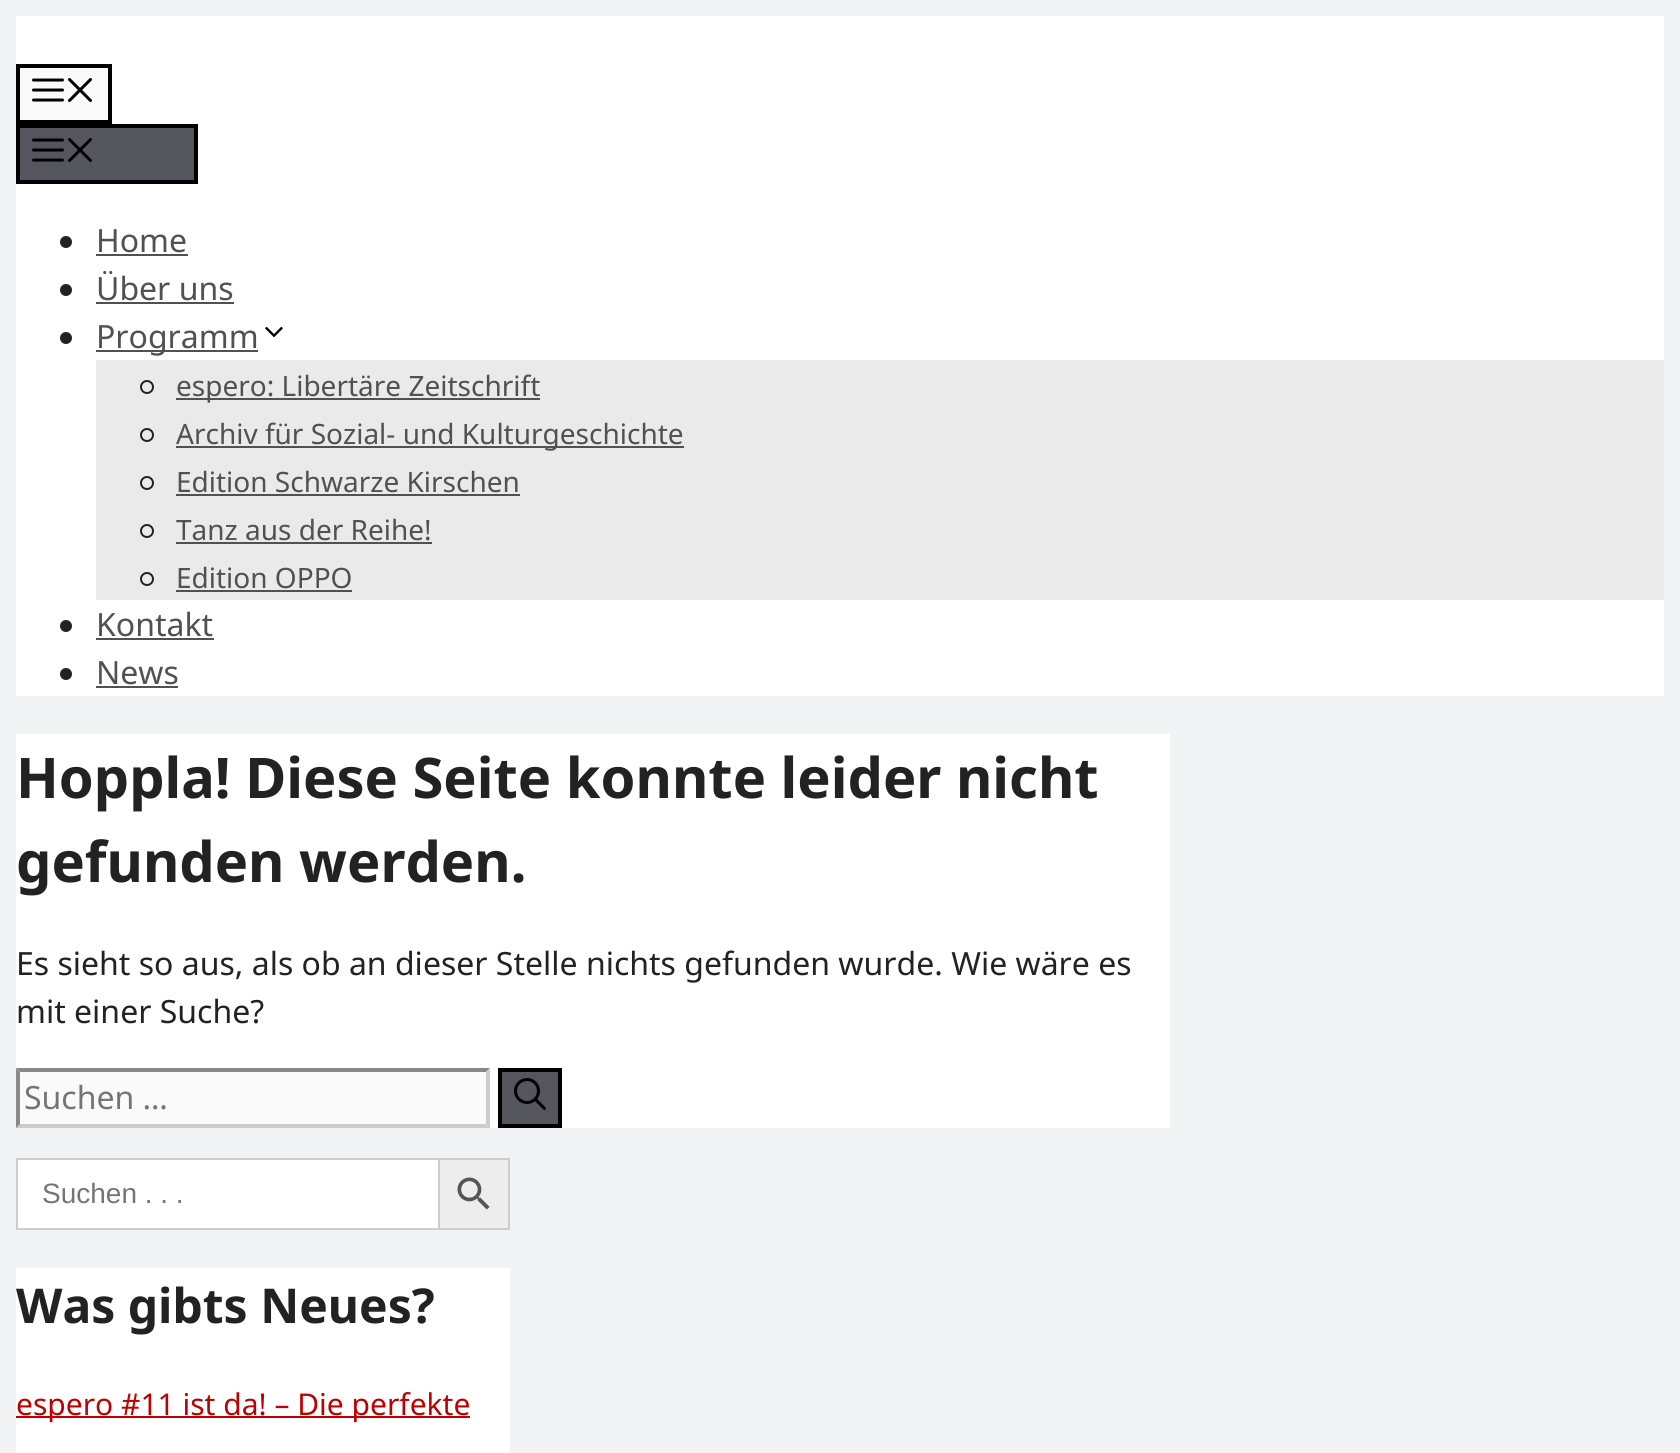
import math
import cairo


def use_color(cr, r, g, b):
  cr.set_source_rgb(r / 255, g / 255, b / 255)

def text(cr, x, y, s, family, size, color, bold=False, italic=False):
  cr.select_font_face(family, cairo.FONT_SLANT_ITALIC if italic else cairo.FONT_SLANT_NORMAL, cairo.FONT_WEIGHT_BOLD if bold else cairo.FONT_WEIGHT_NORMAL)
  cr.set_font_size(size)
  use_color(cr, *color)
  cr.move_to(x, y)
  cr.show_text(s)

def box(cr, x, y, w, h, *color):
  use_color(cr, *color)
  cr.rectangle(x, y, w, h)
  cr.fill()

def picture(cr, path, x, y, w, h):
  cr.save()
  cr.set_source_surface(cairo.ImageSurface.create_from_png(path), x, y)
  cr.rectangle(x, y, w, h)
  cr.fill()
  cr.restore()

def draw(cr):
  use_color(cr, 242, 243, 244)
  cr.paint()
  box(cr, 16, 16, 1648, 680, 255, 255, 255)
  use_color(cr, 250, 250, 250)
  cr.rectangle(18, 66, 92, 56)
  cr.fill_preserve()
  use_color(cr, 0, 0, 0)
  cr.set_line_width(4)
  cr.stroke()
  picture(cr, "img_01.png", 32, 78, 32, 24)
  picture(cr, "img_02.png", 68, 78, 24, 24)
  use_color(cr, 85, 85, 94)
  cr.rectangle(18, 126, 178, 56)
  cr.fill_preserve()
  use_color(cr, 0, 0, 0)
  cr.stroke()
  picture(cr, "img_03.png", 32, 138, 32, 24)
  picture(cr, "img_04.png", 68, 138, 24, 24)
  use_color(cr, 34, 34, 34)
  cr.arc(66, 242, 6, 0, 2 * math.pi)
  cr.fill()
  box(cr, 96, 254, 92, 2, 81, 81, 81)
  use_color(cr, 34, 34, 34)
  cr.arc(66, 290, 6, 0, 2 * math.pi)
  cr.fill()
  box(cr, 96, 302, 138, 2, 81, 81, 81)
  use_color(cr, 34, 34, 34)
  cr.arc(66, 338, 6, 0, 2 * math.pi)
  cr.fill()
  box(cr, 96, 350, 162, 2, 81, 81, 81)
  picture(cr, "img_05.png", 265, 326, 18, 12)
  box(cr, 96, 360, 1568, 240, 234, 234, 234)
  cr.arc(147, 387, 6, 0, 2 * math.pi)
  use_color(cr, 34, 34, 34)
  cr.set_line_width(2)
  cr.stroke()
  box(cr, 176, 398, 364, 2, 81, 81, 81)
  cr.arc(147, 435, 6, 0, 2 * math.pi)
  use_color(cr, 34, 34, 34)
  cr.stroke()
  box(cr, 176, 446, 508, 2, 81, 81, 81)
  cr.arc(147, 483, 6, 0, 2 * math.pi)
  use_color(cr, 34, 34, 34)
  cr.stroke()
  box(cr, 176, 494, 344, 2, 81, 81, 81)
  cr.arc(147, 531, 6, 0, 2 * math.pi)
  use_color(cr, 34, 34, 34)
  cr.stroke()
  box(cr, 176, 542, 256, 2, 81, 81, 81)
  cr.arc(147, 579, 6, 0, 2 * math.pi)
  use_color(cr, 34, 34, 34)
  cr.stroke()
  box(cr, 176, 590, 176, 2, 81, 81, 81)
  use_color(cr, 34, 34, 34)
  cr.arc(66, 626, 6, 0, 2 * math.pi)
  cr.fill()
  box(cr, 96, 638, 118, 2, 81, 81, 81)
  use_color(cr, 34, 34, 34)
  cr.arc(66, 674, 6, 0, 2 * math.pi)
  cr.fill()
  box(cr, 96, 686, 82, 2, 81, 81, 81)
  box(cr, 16, 734, 1154, 394, 255, 255, 255)
  box(cr, 16, 1068, 474, 60, 250, 250, 250)
  use_color(cr, 136, 136, 136)
  cr.new_path()
  cr.move_to(16, 1068)
  cr.line_to(490, 1068)
  cr.line_to(486, 1072)
  cr.line_to(20, 1072)
  cr.close_path()
  cr.fill()
  use_color(cr, 204, 204, 204)
  cr.new_path()
  cr.move_to(490, 1068)
  cr.line_to(490, 1128)
  cr.line_to(486, 1124)
  cr.line_to(486, 1072)
  cr.close_path()
  cr.fill()
  cr.new_path()
  cr.move_to(490, 1128)
  cr.line_to(16, 1128)
  cr.line_to(20, 1124)
  cr.line_to(486, 1124)
  cr.close_path()
  cr.fill()
  use_color(cr, 136, 136, 136)
  cr.new_path()
  cr.move_to(16, 1128)
  cr.line_to(16, 1068)
  cr.line_to(20, 1072)
  cr.line_to(20, 1124)
  cr.close_path()
  cr.fill()
  use_color(cr, 85, 85, 94)
  cr.rectangle(500, 1070, 60, 56)
  cr.fill_preserve()
  use_color(cr, 0, 0, 0)
  cr.set_line_width(4)
  cr.stroke()
  picture(cr, "img_06.png", 514, 1078, 32, 32)
  box(cr, 18, 1160, 420, 68, 255, 255, 255)
  box(cr, 16, 1158, 422, 2, 204, 204, 204)
  box(cr, 16, 1228, 422, 2, 204, 204, 204)
  box(cr, 16, 1158, 2, 72, 204, 204, 204)
  use_color(cr, 237, 237, 237)
  cr.rectangle(439, 1159, 70, 70)
  cr.fill_preserve()
  use_color(cr, 204, 204, 204)
  cr.set_line_width(2)
  cr.stroke()
  picture(cr, "img_07.png", 457, 1177, 33, 33)
  box(cr, 16, 1268, 494, 185, 255, 255, 255)
  box(cr, 16, 1416, 454, 2, 192, 0, 0)
  text(cr, 96, 252, "Home", "Noto Sans", 32, (81, 81, 81))
  text(cr, 96, 300, "Über uns", "Noto Sans", 32, (81, 81, 81))
  text(cr, 96, 348, "Programm", "Noto Sans", 32, (81, 81, 81))
  text(cr, 176, 396, "espero: Libertäre Zeitschrift", "Noto Sans", 28, (81, 81, 81))
  text(cr, 176, 444, "Archiv für Sozial- und Kulturgeschichte", "Noto Sans", 28, (81, 81, 81))
  text(cr, 176, 492, "Edition Schwarze Kirschen", "Noto Sans", 28, (81, 81, 81))
  text(cr, 176, 540, "Tanz aus der Reihe!", "Noto Sans", 28, (81, 81, 81))
  text(cr, 176, 588, "Edition OPPO", "Noto Sans", 28, (81, 81, 81))
  text(cr, 96, 636, "Kontakt", "Noto Sans", 32, (81, 81, 81))
  text(cr, 96, 684, "News", "Noto Sans", 32, (81, 81, 81))
  text(cr, 16, 798, "Hoppla! Diese Seite konnte leider nicht", "Noto Sans", 56, (34, 34, 34), bold=True)
  text(cr, 16, 882, "gefunden werden.", "Noto Sans", 56, (34, 34, 34), bold=True)
  text(cr, 16, 975, "Es sieht so aus, als ob an dieser Stelle nichts gefunden wurde. Wie wäre es", "Noto Sans", 32, (34, 34, 34))
  text(cr, 16, 1023, "mit einer Suche?", "Noto Sans", 32, (34, 34, 34))
  text(cr, 24, 1109, "Suchen …", "Noto Sans", 32, (117, 117, 117))
  text(cr, 42, 1203, "Suchen . . .", "Liberation Sans", 28, (117, 117, 117))
  text(cr, 16, 1323, "Was gibts Neues?", "Noto Sans", 48, (34, 34, 34), bold=True)
  text(cr, 16, 1415, "espero #11 ist da! – Die perfekte", "Noto Sans", 30, (192, 0, 0))


surface = cairo.ImageSurface(cairo.FORMAT_RGB24, 1680, 1453)
cr = cairo.Context(surface)
options = cairo.FontOptions()
options.set_hint_metrics(cairo.HINT_METRICS_OFF)
options.set_hint_style(cairo.HINT_STYLE_NONE)
cr.set_font_options(options)
cr.set_miter_limit(4)
draw(cr)
surface.write_to_png("out.png")
